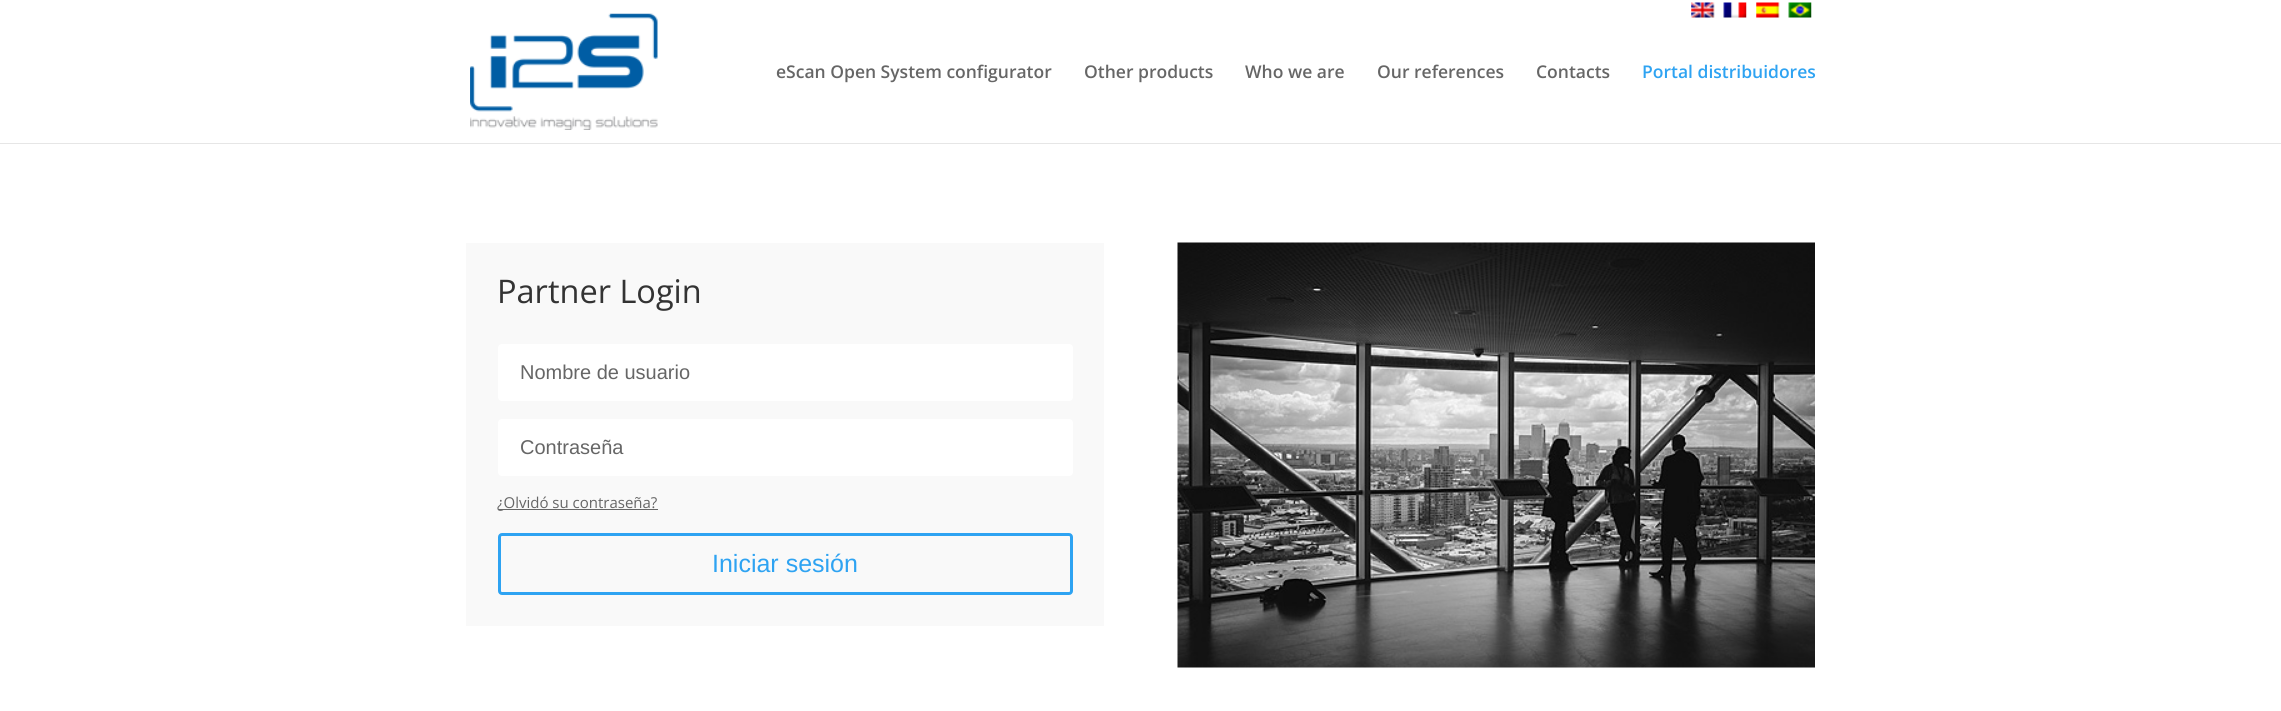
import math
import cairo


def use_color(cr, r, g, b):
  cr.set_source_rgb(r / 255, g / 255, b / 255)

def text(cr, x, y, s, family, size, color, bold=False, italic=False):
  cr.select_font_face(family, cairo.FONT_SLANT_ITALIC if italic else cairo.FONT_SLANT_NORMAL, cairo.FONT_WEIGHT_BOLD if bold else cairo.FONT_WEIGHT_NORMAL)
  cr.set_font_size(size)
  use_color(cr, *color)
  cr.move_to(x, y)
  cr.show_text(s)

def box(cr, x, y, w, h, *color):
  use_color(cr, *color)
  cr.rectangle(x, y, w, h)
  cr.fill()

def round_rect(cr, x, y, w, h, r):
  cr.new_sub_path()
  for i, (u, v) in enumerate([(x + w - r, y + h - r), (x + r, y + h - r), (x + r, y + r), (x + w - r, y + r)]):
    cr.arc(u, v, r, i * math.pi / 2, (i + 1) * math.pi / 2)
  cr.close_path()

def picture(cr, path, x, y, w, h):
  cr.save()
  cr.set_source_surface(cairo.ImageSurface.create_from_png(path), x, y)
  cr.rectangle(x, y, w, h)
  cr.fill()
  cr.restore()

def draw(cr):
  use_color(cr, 255, 255, 255)
  cr.paint()
  box(cr, 0, 143, 2281, 1, 230, 230, 230)
  picture(cr, "img_01.png", 470, 13, 188, 117)
  picture(cr, "img_02.png", 1691, 2, 24, 16)
  picture(cr, "img_03.png", 1723, 2, 24, 16)
  picture(cr, "img_04.png", 1756, 2, 24, 16)
  picture(cr, "img_05.png", 1788, 2, 24, 16)
  box(cr, 466, 243, 638, 383, 249, 249, 249)
  use_color(cr, 255, 255, 255)
  round_rect(cr, 498, 344, 575, 57, 4)
  cr.fill()
  round_rect(cr, 498, 419, 575, 57, 4)
  cr.fill()
  box(cr, 498, 509, 160, 1, 102, 102, 102)
  round_rect(cr, 499.5, 534.5, 572, 59, 2.5)
  use_color(cr, 46, 163, 242)
  cr.set_line_width(3)
  cr.stroke()
  picture(cr, "img_06.png", 1177, 242, 638, 426)
  text(cr, 776, 78, "eScan Open System configurator", "Open Sans SemiBold", 17.5, (102, 102, 102))
  text(cr, 1084, 78, "Other products", "Open Sans SemiBold", 17.5, (102, 102, 102))
  text(cr, 1245, 78, "Who we are", "Open Sans SemiBold", 17.5, (102, 102, 102))
  text(cr, 1377, 78, "Our references", "Open Sans SemiBold", 17.5, (102, 102, 102))
  text(cr, 1536, 78, "Contacts", "Open Sans SemiBold", 17.5, (102, 102, 102))
  text(cr, 1642, 78, "Portal distribuidores", "Open Sans SemiBold", 17.5, (46, 163, 242))
  text(cr, 497, 303, "Partner Login", "Open Sans", 32.5, (51, 51, 51))
  text(cr, 520, 379, "Nombre de usuario", "Liberation Sans", 20, (102, 102, 102))
  text(cr, 520, 454, "Contraseña", "Liberation Sans", 20, (102, 102, 102))
  text(cr, 497, 508, "¿Olvidó su contraseña?", "Open Sans", 15, (102, 102, 102))
  text(cr, 712, 572, "Iniciar sesión", "Liberation Sans", 25, (46, 163, 242))


surface = cairo.ImageSurface(cairo.FORMAT_RGB24, 2281, 711)
cr = cairo.Context(surface)
options = cairo.FontOptions()
options.set_hint_metrics(cairo.HINT_METRICS_OFF)
options.set_hint_style(cairo.HINT_STYLE_NONE)
cr.set_font_options(options)
cr.set_miter_limit(4)
draw(cr)
surface.write_to_png("out.png")
